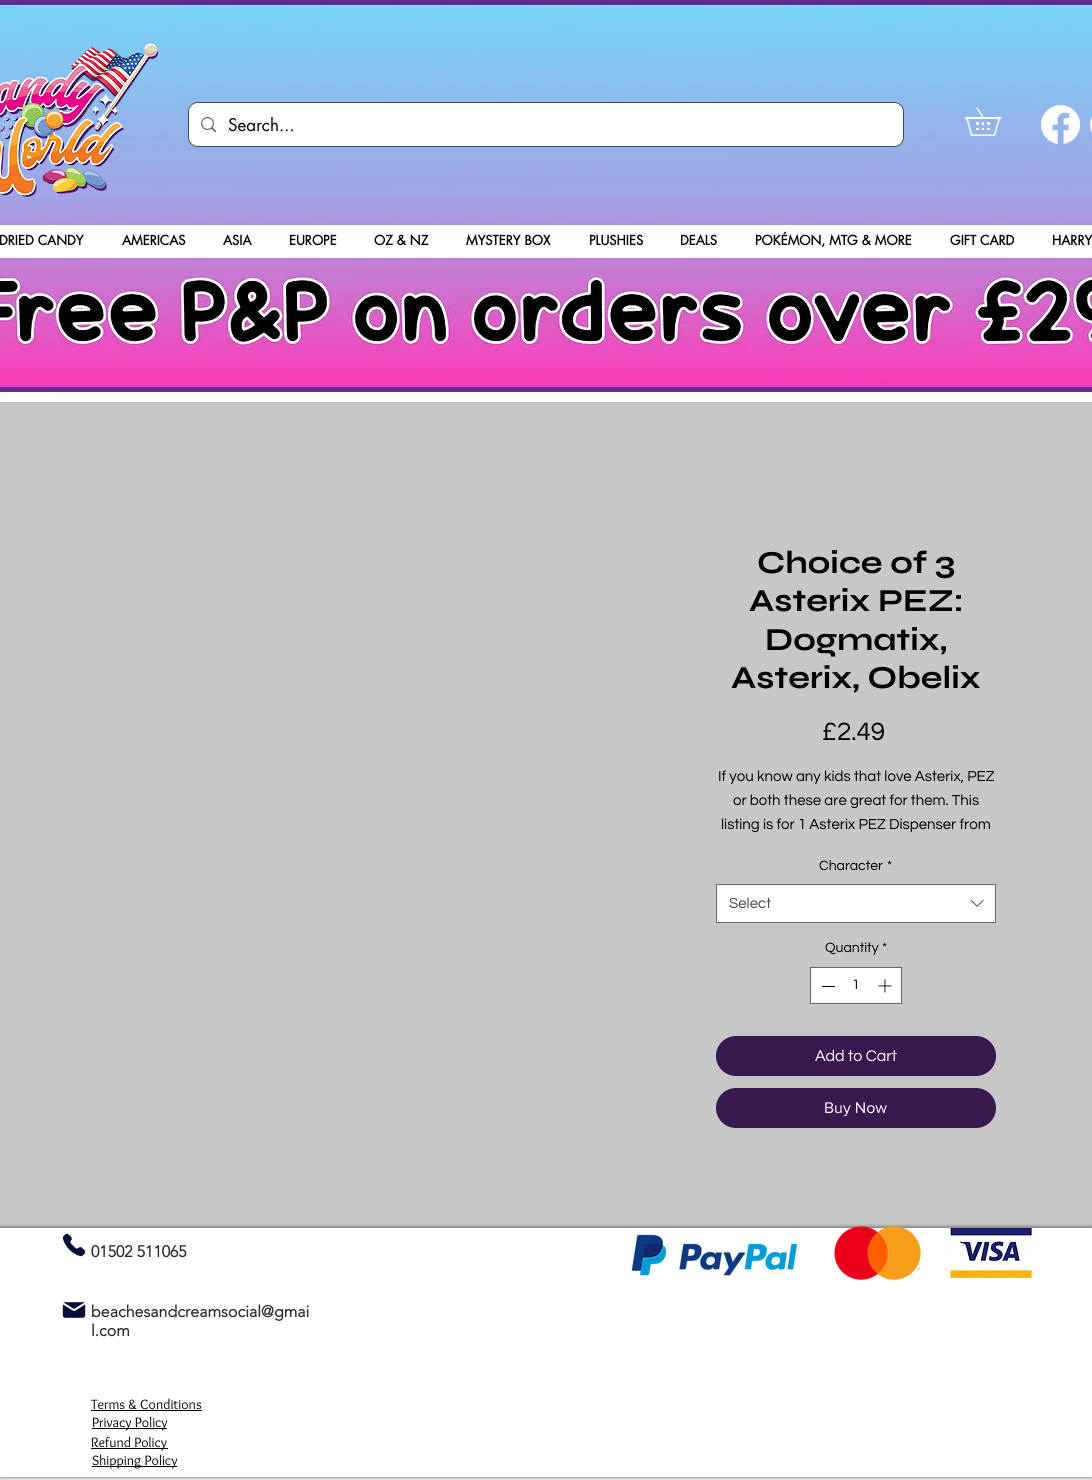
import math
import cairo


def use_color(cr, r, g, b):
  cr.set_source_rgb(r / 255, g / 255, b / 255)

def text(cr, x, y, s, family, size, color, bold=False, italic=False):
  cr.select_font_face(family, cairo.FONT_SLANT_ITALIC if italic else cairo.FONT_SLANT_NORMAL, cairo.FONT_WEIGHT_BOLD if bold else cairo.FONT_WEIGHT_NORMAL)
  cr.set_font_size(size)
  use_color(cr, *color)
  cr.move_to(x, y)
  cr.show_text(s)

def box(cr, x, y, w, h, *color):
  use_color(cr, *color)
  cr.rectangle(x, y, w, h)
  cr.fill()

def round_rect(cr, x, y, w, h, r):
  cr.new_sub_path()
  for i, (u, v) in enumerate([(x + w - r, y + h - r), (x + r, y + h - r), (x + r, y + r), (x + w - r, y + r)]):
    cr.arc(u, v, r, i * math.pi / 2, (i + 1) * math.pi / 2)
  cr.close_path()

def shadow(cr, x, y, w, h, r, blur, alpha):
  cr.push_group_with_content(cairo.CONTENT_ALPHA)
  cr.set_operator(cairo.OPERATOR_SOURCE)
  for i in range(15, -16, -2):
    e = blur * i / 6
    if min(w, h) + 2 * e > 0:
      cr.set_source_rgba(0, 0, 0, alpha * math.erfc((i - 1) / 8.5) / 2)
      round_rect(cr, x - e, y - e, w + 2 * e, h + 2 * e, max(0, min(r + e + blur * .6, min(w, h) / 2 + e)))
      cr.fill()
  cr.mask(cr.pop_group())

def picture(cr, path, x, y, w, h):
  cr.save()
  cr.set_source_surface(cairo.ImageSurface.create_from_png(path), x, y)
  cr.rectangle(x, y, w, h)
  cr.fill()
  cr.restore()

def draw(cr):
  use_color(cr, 255, 255, 255)
  cr.paint()
  picture(cr, "img_01.png", 0, 0, 1092, 392)
  picture(cr, "img_02.png", 0, 43, 159, 154)
  round_rect(cr, 188.5, 102.5, 715, 44, 9.5)
  cr.set_source_rgba(0, 0, 0, 0.6)
  cr.set_line_width(1)
  cr.stroke()
  use_color(cr, 255, 255, 255)
  round_rect(cr, 189, 103, 714, 43, 9)
  cr.fill()
  picture(cr, "img_03.png", 201, 117, 15, 15)
  picture(cr, "img_04.png", 965, 107, 36, 29)
  picture(cr, "img_05.png", 1041, 105, 39, 39)
  picture(cr, "img_06.png", 1090, 116, 2, 17)
  box(cr, 0, 225, 1092, 33, 255, 255, 255)
  box(cr, 0, 402, 1092, 826, 199, 199, 199)
  use_color(cr, 255, 255, 255)
  cr.rectangle(716.5, 884.5, 279, 38)
  cr.fill_preserve()
  use_color(cr, 102, 102, 102)
  cr.stroke()
  picture(cr, "img_07.png", 970, 899, 14, 8)
  use_color(cr, 255, 255, 255)
  cr.rectangle(810.5, 967.5, 91, 36)
  cr.fill_preserve()
  use_color(cr, 102, 102, 102)
  cr.stroke()
  box(cr, 822, 986, 13, 1, 0, 0, 0)
  picture(cr, "img_08.png", 878, 979, 14, 14)
  use_color(cr, 56, 25, 79)
  round_rect(cr, 716, 1036, 280, 40, 20)
  cr.fill()
  round_rect(cr, 716, 1088, 280, 40, 20)
  cr.fill()
  cr.save()
  cr.set_fill_rule(cairo.FILL_RULE_EVEN_ODD)
  cr.new_path()
  cr.move_to(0, 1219)
  cr.line_to(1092, 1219)
  cr.line_to(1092, 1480)
  cr.line_to(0, 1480)
  cr.close_path()
  cr.move_to(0, 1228)
  cr.line_to(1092, 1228)
  cr.line_to(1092, 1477)
  cr.line_to(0, 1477)
  cr.close_path()
  cr.clip()
  use_color(cr, 0, 0, 0)
  shadow(cr, 0, 1228, 1092, 249, 0, 2.5, 0.7)
  cr.restore()
  picture(cr, "img_09.png", 62, 1233, 24, 24)
  picture(cr, "img_10.png", 631, 1234, 167, 42)
  picture(cr, "img_11.png", 834, 1226, 87, 54)
  picture(cr, "img_12.png", 947, 1228, 88, 50)
  picture(cr, "img_13.png", 62, 1302, 24, 16)
  box(cr, 91, 1410, 111, 1, 0, 0, 0)
  box(cr, 92, 1428, 75, 1, 0, 0, 0)
  box(cr, 91, 1448, 77, 1, 0, 0, 0)
  box(cr, 92, 1466, 85, 1, 0, 0, 0)
  text(cr, 228, 131, "Search...", "futura", 17, (0, 0, 0))
  text(cr, -1, 245, "DRIED CANDY", "futura", 13, (0, 0, 0), bold=True)
  text(cr, 122, 245, "AMERICAS", "futura", 13, (0, 0, 0), bold=True)
  text(cr, 223, 245, "ASIA", "futura", 13, (0, 0, 0), bold=True)
  text(cr, 289, 245, "EUROPE", "futura", 13, (0, 0, 0), bold=True)
  text(cr, 374, 245, "OZ & NZ", "futura", 13, (0, 0, 0), bold=True)
  text(cr, 466, 245, "MYSTERY BOX", "futura", 13, (0, 0, 0), bold=True)
  text(cr, 589, 245, "PLUSHIES", "futura", 13, (0, 0, 0), bold=True)
  text(cr, 680, 245, "DEALS", "futura", 13, (0, 0, 0), bold=True)
  text(cr, 755, 245, "POKÉMON, MTG & MORE", "futura", 13, (0, 0, 0), bold=True)
  text(cr, 950, 245, "GIFT CARD", "futura", 13, (0, 0, 0), bold=True)
  text(cr, 1052, 245, "HARRY", "futura", 13, (0, 0, 0), bold=True)
  text(cr, 757, 573, "Choice of 3", "Syne", 32, (0, 0, 0), bold=True)
  text(cr, 749, 611, "Asterix PEZ:", "Syne", 32, (0, 0, 0), bold=True)
  text(cr, 765, 650, "Dogmatix,", "Syne", 32, (0, 0, 0), bold=True)
  text(cr, 731, 688, "Asterix, Obelix", "Syne", 32, (0, 0, 0), bold=True)
  text(cr, 822, 740, "£2.49", "Questrial", 26, (0, 0, 0))
  text(cr, 718, 781, "If you know any kids that love Asterix, PEZ", "Questrial", 15, (0, 0, 0))
  text(cr, 733, 805, "or both these are great for them. This", "Questrial", 15, (0, 0, 0))
  text(cr, 721, 829, "listing is for 1 Asterix PEZ Dispenser from", "Questrial", 15, (0, 0, 0))
  text(cr, 819, 870, "Character", "Questrial", 14, (0, 0, 0))
  text(cr, 887, 870, "*", "Questrial", 14, (0, 0, 0))
  text(cr, 729, 908, "Select", "Questrial", 15, (68, 68, 68))
  text(cr, 825, 952, "Quantity", "Questrial", 14, (0, 0, 0))
  text(cr, 882, 952, "*", "Questrial", 14, (0, 0, 0))
  text(cr, 852, 989, "1", "Questrial", 14, (0, 0, 0))
  text(cr, 815, 1061, "Add to Cart", "Questrial", 16, (255, 255, 255))
  text(cr, 824, 1113, "Buy Now", "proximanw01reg", 16, (255, 255, 255))
  text(cr, 91, 1257, "01502 511065", "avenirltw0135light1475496", 16, (41, 41, 41), bold=True)
  text(cr, 91, 1317, "beachesandcreamsocial@gmai", "avenirltw0135light1475496", 16, (41, 41, 41), bold=True)
  text(cr, 91, 1336, "l.com", "avenirltw0135light1475496", 16, (41, 41, 41), bold=True)
  text(cr, 91, 1409, "Terms & Conditions", "Overlock", 14, (0, 0, 0))
  text(cr, 92, 1427, "Privacy Policy", "Overlock", 14, (0, 0, 0))
  text(cr, 91, 1447, "Refund Policy", "Overlock", 14, (0, 0, 0))
  text(cr, 92, 1465, "Shipping Policy", "Overlock", 14, (0, 0, 0))


surface = cairo.ImageSurface(cairo.FORMAT_RGB24, 1092, 1480)
cr = cairo.Context(surface)
options = cairo.FontOptions()
options.set_hint_metrics(cairo.HINT_METRICS_OFF)
options.set_hint_style(cairo.HINT_STYLE_NONE)
cr.set_font_options(options)
cr.set_miter_limit(4)
draw(cr)
surface.write_to_png("out.png")
